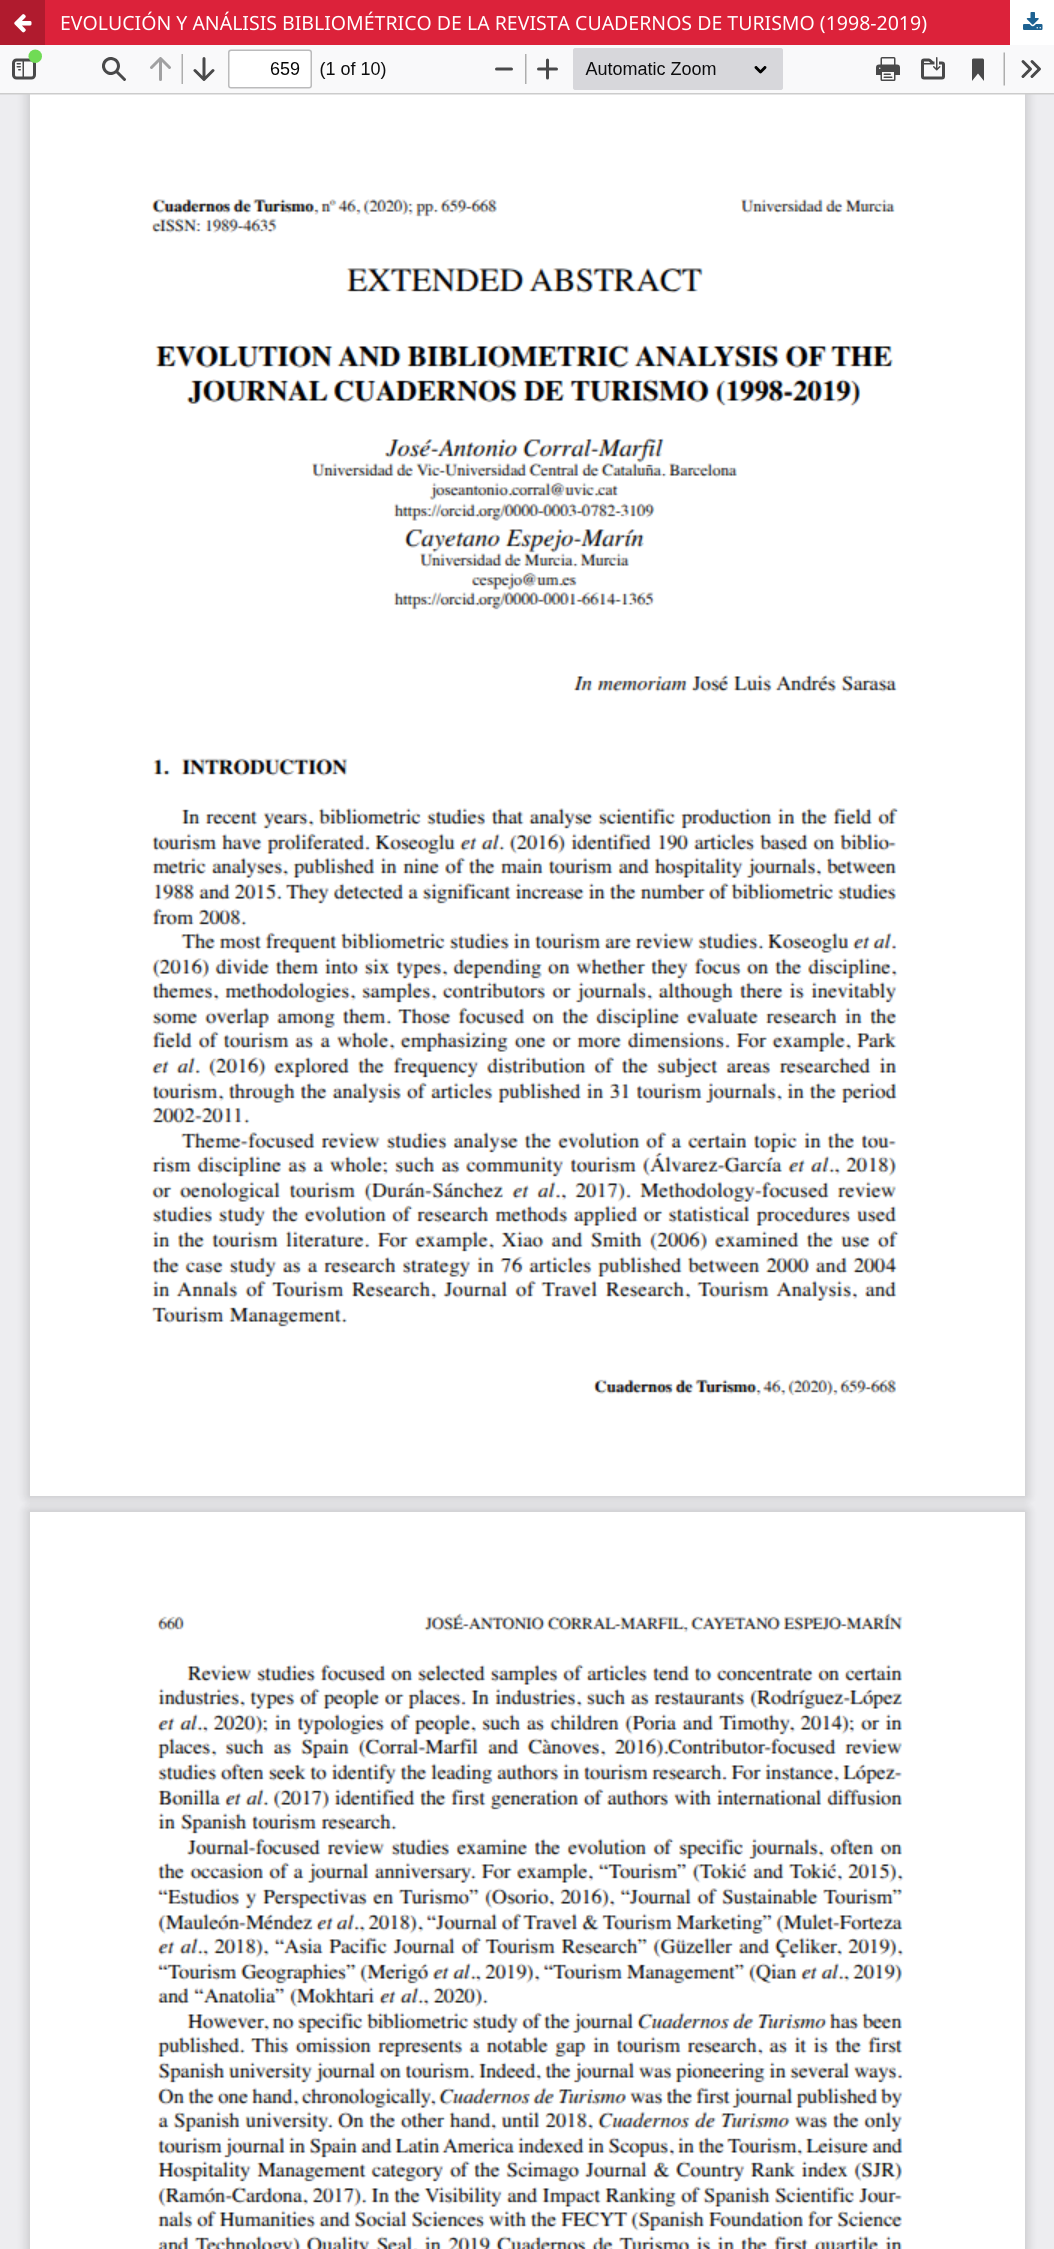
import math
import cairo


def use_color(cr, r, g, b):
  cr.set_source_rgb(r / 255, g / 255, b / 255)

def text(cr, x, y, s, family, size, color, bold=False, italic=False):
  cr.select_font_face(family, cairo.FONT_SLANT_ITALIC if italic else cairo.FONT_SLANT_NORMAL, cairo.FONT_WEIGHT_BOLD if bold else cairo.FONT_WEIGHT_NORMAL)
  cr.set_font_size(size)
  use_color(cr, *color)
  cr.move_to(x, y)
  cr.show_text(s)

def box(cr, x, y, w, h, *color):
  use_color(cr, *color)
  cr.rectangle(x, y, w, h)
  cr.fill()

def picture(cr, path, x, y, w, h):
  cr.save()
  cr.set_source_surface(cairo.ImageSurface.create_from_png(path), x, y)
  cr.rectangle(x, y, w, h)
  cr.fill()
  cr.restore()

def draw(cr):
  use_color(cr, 255, 255, 255)
  cr.paint()
  box(cr, 45, 0, 965, 45, 220, 34, 58)
  box(cr, 0, 0, 45, 45, 176, 27, 46)
  picture(cr, "img_01.png", 14, 14, 18, 19)
  picture(cr, "img_02.png", 1023, 12, 20, 18)
  picture(cr, "img_03.png", 0, 45, 1054, 2204)
  text(cr, 60, 30, "EVOLUCIÓN Y ANÁLISIS BIBLIOMÉTRICO DE LA REVISTA CUADERNOS DE TURISMO (1998-2019)", "Noto Sans", 19.5, (255, 255, 255))


surface = cairo.ImageSurface(cairo.FORMAT_RGB24, 1054, 2249)
cr = cairo.Context(surface)
options = cairo.FontOptions()
options.set_hint_metrics(cairo.HINT_METRICS_OFF)
options.set_hint_style(cairo.HINT_STYLE_NONE)
cr.set_font_options(options)
cr.set_miter_limit(4)
draw(cr)
surface.write_to_png("out.png")
